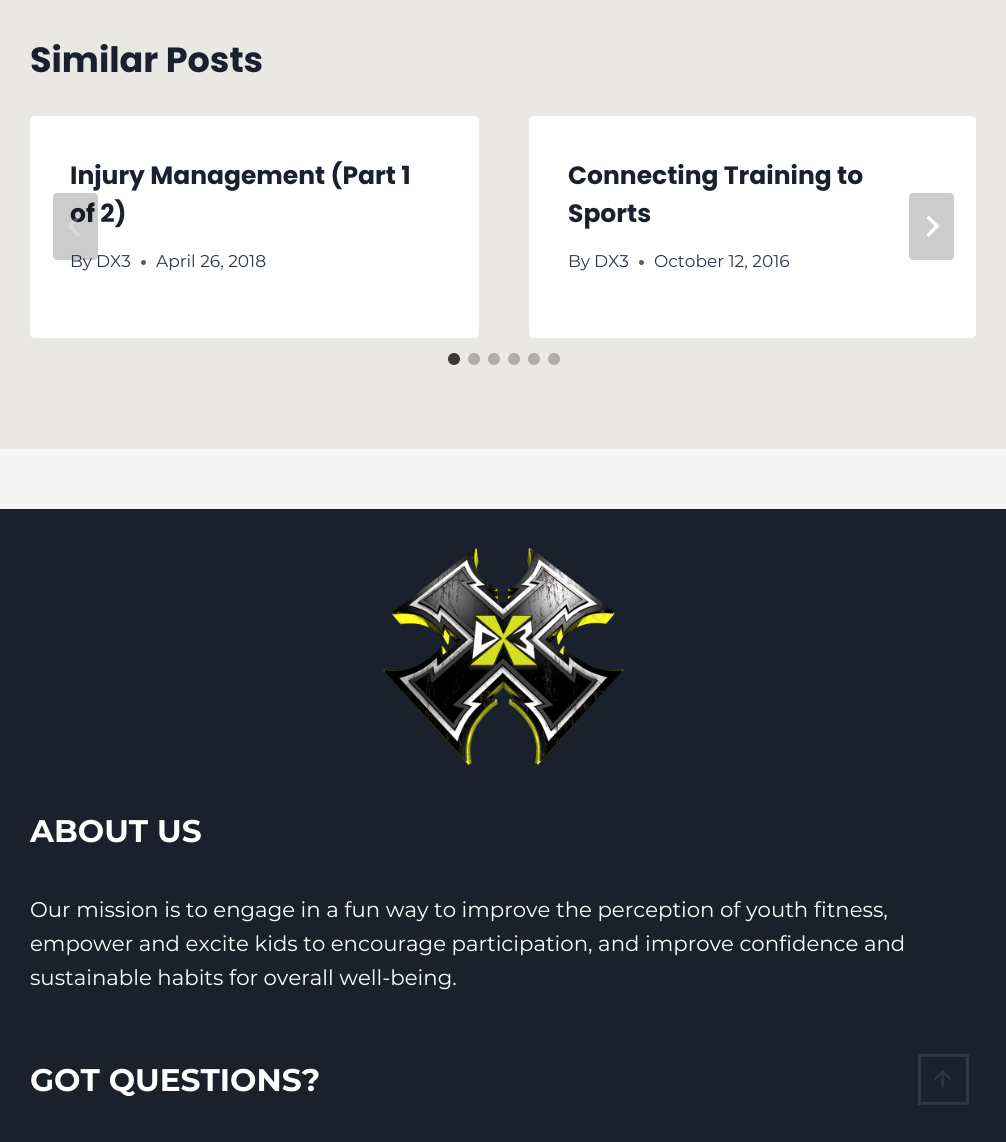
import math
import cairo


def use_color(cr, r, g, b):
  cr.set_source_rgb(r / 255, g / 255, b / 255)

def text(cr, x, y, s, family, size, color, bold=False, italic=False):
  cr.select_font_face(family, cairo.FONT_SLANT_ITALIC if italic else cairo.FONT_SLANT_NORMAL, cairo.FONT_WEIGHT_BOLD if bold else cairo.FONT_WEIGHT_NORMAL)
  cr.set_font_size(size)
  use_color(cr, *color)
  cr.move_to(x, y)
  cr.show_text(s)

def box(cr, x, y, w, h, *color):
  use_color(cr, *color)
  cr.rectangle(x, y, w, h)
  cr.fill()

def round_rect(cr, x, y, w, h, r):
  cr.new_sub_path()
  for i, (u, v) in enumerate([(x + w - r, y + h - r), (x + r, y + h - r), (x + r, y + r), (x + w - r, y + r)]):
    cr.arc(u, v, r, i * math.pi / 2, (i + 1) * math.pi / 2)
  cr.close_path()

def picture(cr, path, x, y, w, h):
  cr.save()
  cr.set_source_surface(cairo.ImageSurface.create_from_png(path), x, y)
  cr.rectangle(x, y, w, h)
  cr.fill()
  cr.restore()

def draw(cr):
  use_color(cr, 245, 245, 245)
  cr.paint()
  box(cr, 0, 0, 1006, 449, 234, 232, 229)
  use_color(cr, 255, 255, 255)
  round_rect(cr, 30, 116, 449, 222, 5)
  cr.fill()
  use_color(cr, 87, 95, 109)
  cr.arc(143.5, 262.5, 2.5, 0, 2 * math.pi)
  cr.fill()
  use_color(cr, 255, 255, 255)
  round_rect(cr, 529, 116, 447, 222, 5)
  cr.fill()
  use_color(cr, 87, 95, 109)
  cr.arc(641.5, 262.5, 2.5, 0, 2 * math.pi)
  cr.fill()
  use_color(cr, 204, 204, 204)
  round_rect(cr, 909, 193, 45, 67, 4)
  cr.fill()
  use_color(cr, 255, 255, 255)
  cr.new_path()
  cr.move_to(928.5, 215.5)
  cr.line_to(926.5, 218)
  cr.line_to(934.5, 226)
  cr.line_to(926.5, 234.5)
  cr.line_to(928.5, 237)
  cr.line_to(939.5, 226)
  cr.close_path()
  cr.fill()
  use_color(cr, 59, 58, 57)
  cr.arc(454, 359, 6, 0, 2 * math.pi)
  cr.fill()
  use_color(cr, 176, 174, 172)
  cr.arc(474, 359, 6, 0, 2 * math.pi)
  cr.fill()
  cr.arc(494, 359, 6, 0, 2 * math.pi)
  cr.fill()
  cr.arc(514, 359, 6, 0, 2 * math.pi)
  cr.fill()
  cr.arc(534, 359, 6, 0, 2 * math.pi)
  cr.fill()
  cr.arc(554, 359, 6, 0, 2 * math.pi)
  cr.fill()
  box(cr, 0, 509, 1006, 633, 26, 32, 44)
  picture(cr, "img_01.png", 383, 547, 241, 218)
  cr.rectangle(919.5, 1055.5, 48, 48)
  use_color(cr, 45, 55, 72)
  cr.set_line_width(3)
  cr.stroke()
  picture(cr, "img_02.png", 934, 1070, 17, 18)
  text(cr, 30, 72, "Similar Posts", "Poppins", 35, (26, 32, 44), bold=True)
  text(cr, 70, 184, "Injury Management (Part 1", "Poppins", 25, (26, 32, 44), bold=True)
  text(cr, 70, 222, "of 2)", "Poppins", 25, (26, 32, 44), bold=True)
  text(cr, 70, 267, "By", "Montserrat", 17, (45, 55, 72))
  text(cr, 96, 267, "DX3", "Montserrat", 17, (45, 55, 72))
  text(cr, 156, 267, "April 26, 2018", "Montserrat", 17, (45, 55, 72))
  text(cr, 568, 184, "Connecting Training to", "Poppins", 25, (26, 32, 44), bold=True)
  text(cr, 568, 222, "Sports", "Poppins", 25, (26, 32, 44), bold=True)
  text(cr, 568, 267, "By", "Montserrat", 17, (45, 55, 72))
  text(cr, 594, 267, "DX3", "Montserrat", 17, (45, 55, 72))
  text(cr, 654, 267, "October 12, 2016", "Montserrat", 17, (45, 55, 72))
  cr.set_source_rgba(0, 0, 0, 0.2)
  round_rect(cr, 53, 193, 45, 67, 4)
  cr.fill()
  cr.set_source_rgba(1, 1, 1, 0.25)
  cr.new_path()
  cr.move_to(77.5, 215.5)
  cr.line_to(80, 218)
  cr.line_to(72, 226)
  cr.line_to(80, 234.5)
  cr.line_to(77.5, 237)
  cr.line_to(67, 226)
  cr.close_path()
  cr.fill()
  text(cr, 30, 842, "ABOUT US", "Montserrat", 31.25, (255, 255, 255), bold=True)
  text(cr, 30, 917, "Our mission is to engage in a fun way to improve the perception of youth fitness,", "Montserrat", 21.25, (255, 255, 255))
  text(cr, 30, 951, "empower and excite kids to encourage participation, and improve confidence and", "Montserrat", 21.25, (255, 255, 255))
  text(cr, 30, 985, "sustainable habits for overall well-being.", "Montserrat", 21.25, (255, 255, 255))
  text(cr, 30, 1091, "GOT QUESTIONS?", "Montserrat", 31.25, (255, 255, 255), bold=True)


surface = cairo.ImageSurface(cairo.FORMAT_RGB24, 1006, 1142)
cr = cairo.Context(surface)
options = cairo.FontOptions()
options.set_hint_metrics(cairo.HINT_METRICS_OFF)
options.set_hint_style(cairo.HINT_STYLE_NONE)
cr.set_font_options(options)
cr.set_miter_limit(4)
draw(cr)
surface.write_to_png("out.png")
